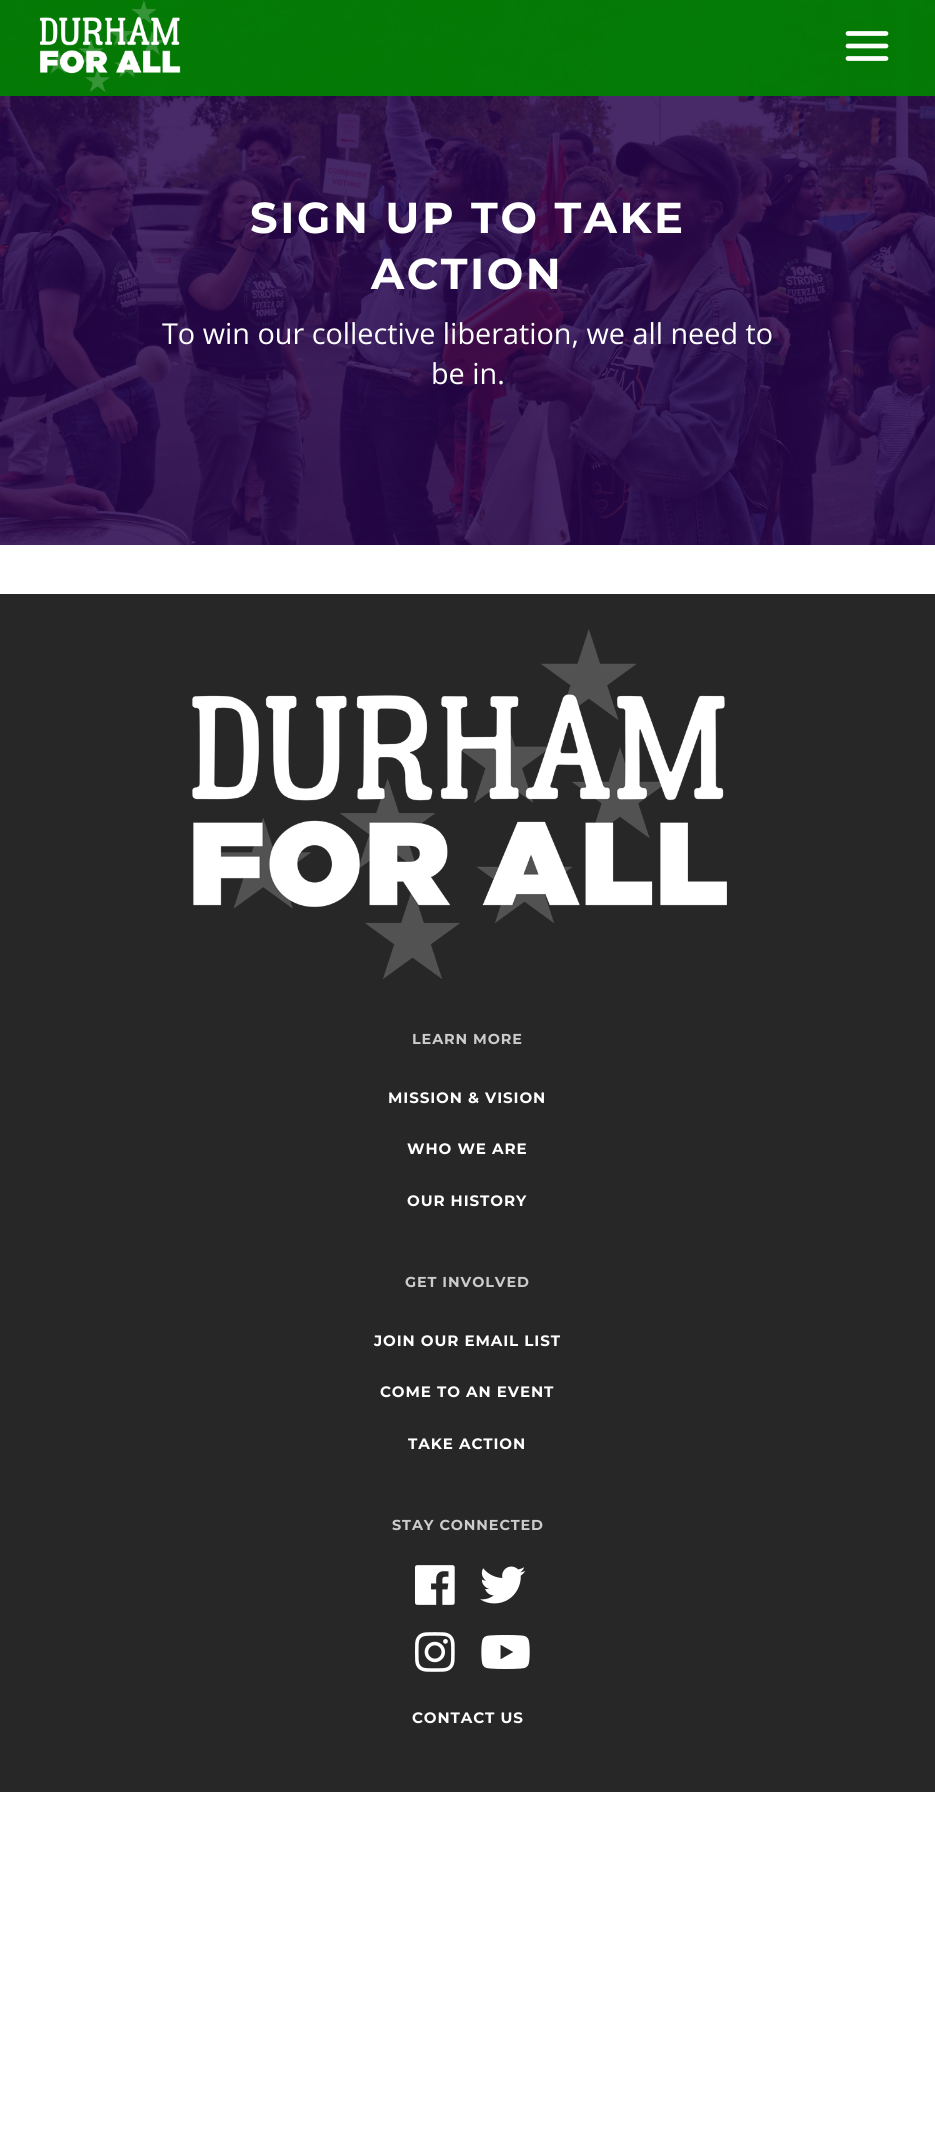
import math
import cairo


def use_color(cr, r, g, b):
  cr.set_source_rgb(r / 255, g / 255, b / 255)

def text(cr, x, y, s, family, size, color, bold=False, italic=False):
  cr.select_font_face(family, cairo.FONT_SLANT_ITALIC if italic else cairo.FONT_SLANT_NORMAL, cairo.FONT_WEIGHT_BOLD if bold else cairo.FONT_WEIGHT_NORMAL)
  cr.set_font_size(size)
  use_color(cr, *color)
  cr.move_to(x, y)
  cr.show_text(s)

def spaced_text(cr, x, y, s, letter, word):
  cr.move_to(x, y)
  for ch in s:
    cr.show_text(ch)
    cr.rel_move_to(letter + word * (ch == ' '), 0)

def box(cr, x, y, w, h, *color):
  use_color(cr, *color)
  cr.rectangle(x, y, w, h)
  cr.fill()

def picture(cr, path, x, y, w, h):
  cr.save()
  cr.set_source_surface(cairo.ImageSurface.create_from_png(path), x, y)
  cr.rectangle(x, y, w, h)
  cr.fill()
  cr.restore()

def draw(cr):
  use_color(cr, 255, 255, 255)
  cr.paint()
  picture(cr, "img_02.png", 0, 0, 935, 545)
  cr.set_source_rgba(0.012, 0.498, 0.012, 0.95)
  cr.rectangle(0, 0, 935, 96)
  cr.fill()
  picture(cr, "img_01.png", 39, 0, 142, 92)
  cr.new_path()
  cr.move_to(848, 33.5)
  cr.line_to(886, 33.5)
  cr.move_to(848, 46)
  cr.line_to(886, 46)
  cr.move_to(848, 58.5)
  cr.line_to(886, 58.5)
  use_color(cr, 255, 255, 255)
  cr.set_line_width(4.7)
  cr.set_line_cap(cairo.LINE_CAP_ROUND)
  cr.stroke()
  box(cr, 0, 594, 935, 1198, 39, 39, 39)
  picture(cr, "img_03.png", 192, 629, 535, 350)
  picture(cr, "img_04.png", 415, 1565, 40, 40)
  picture(cr, "img_05.png", 480, 1566, 46, 38)
  picture(cr, "img_06.png", 415, 1632, 40, 40)
  picture(cr, "img_07.png", 481, 1635, 49, 34)
  cr.select_font_face("Montserrat Thin")
  cr.set_font_size(43.25)
  use_color(cr, 255, 255, 255)
  spaced_text(cr, 250, 233, "SIGN UP TO TAKE", 2.6, 0)
  spaced_text(cr, 371, 289, "ACTION", 2.6, 0)
  text(cr, 162, 344, "To win our collective liberation, we all need to", "Open Sans", 28.8, (255, 255, 255))
  text(cr, 431, 384, "be in.", "Open Sans", 28.8, (255, 255, 255))
  cr.select_font_face("Montserrat Thin")
  cr.set_font_size(14.4)
  use_color(cr, 204, 204, 204)
  spaced_text(cr, 412, 1044, "LEARN MORE", 0.9, 0)
  cr.set_font_size(15.1)
  use_color(cr, 255, 255, 255)
  spaced_text(cr, 388, 1103, "MISSION & VISION", 0.9, 0)
  spaced_text(cr, 407, 1154, "WHO WE ARE", 0.9, 0)
  spaced_text(cr, 407, 1206, "OUR HISTORY", 0.9, 0)
  cr.set_font_size(14.4)
  use_color(cr, 204, 204, 204)
  spaced_text(cr, 405, 1287, "GET INVOLVED", 0.9, 0)
  cr.set_font_size(15.1)
  use_color(cr, 255, 255, 255)
  spaced_text(cr, 374, 1346, "JOIN OUR EMAIL LIST", 0.9, 0)
  spaced_text(cr, 380, 1397, "COME TO AN EVENT", 0.9, 0)
  spaced_text(cr, 408, 1449, "TAKE ACTION", 0.9, 0)
  cr.set_font_size(14.4)
  use_color(cr, 204, 204, 204)
  spaced_text(cr, 392, 1530, "STAY CONNECTED", 0.9, 0)
  cr.set_font_size(15.1)
  use_color(cr, 255, 255, 255)
  spaced_text(cr, 412, 1723, "CONTACT US", 0.9, 0)


surface = cairo.ImageSurface(cairo.FORMAT_RGB24, 935, 2151)
cr = cairo.Context(surface)
options = cairo.FontOptions()
options.set_hint_metrics(cairo.HINT_METRICS_OFF)
options.set_hint_style(cairo.HINT_STYLE_NONE)
cr.set_font_options(options)
cr.set_miter_limit(4)
draw(cr)
surface.write_to_png("out.png")
